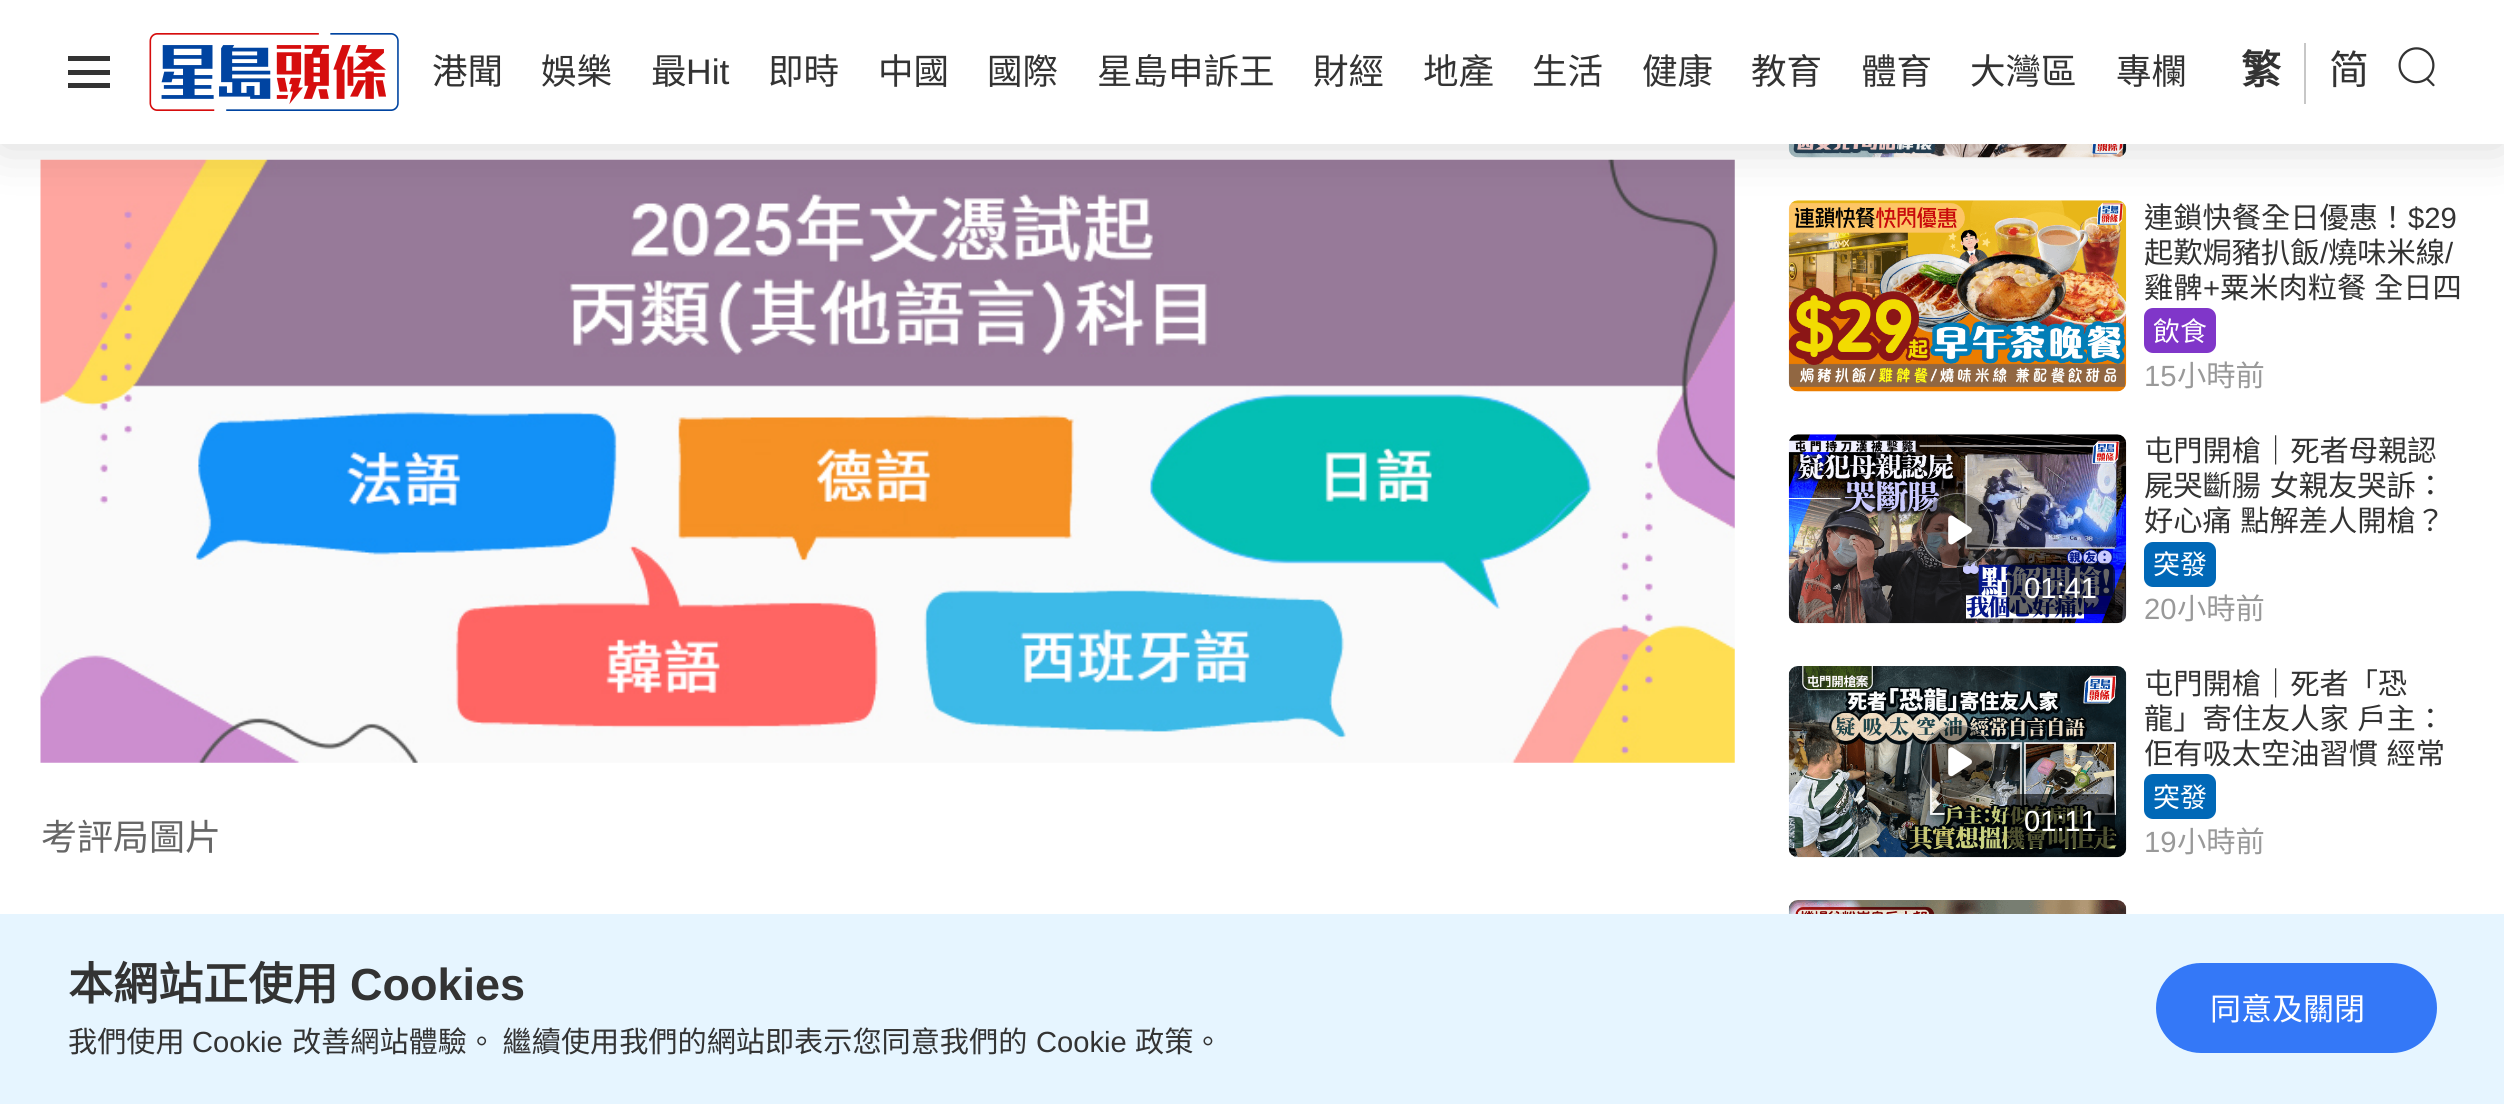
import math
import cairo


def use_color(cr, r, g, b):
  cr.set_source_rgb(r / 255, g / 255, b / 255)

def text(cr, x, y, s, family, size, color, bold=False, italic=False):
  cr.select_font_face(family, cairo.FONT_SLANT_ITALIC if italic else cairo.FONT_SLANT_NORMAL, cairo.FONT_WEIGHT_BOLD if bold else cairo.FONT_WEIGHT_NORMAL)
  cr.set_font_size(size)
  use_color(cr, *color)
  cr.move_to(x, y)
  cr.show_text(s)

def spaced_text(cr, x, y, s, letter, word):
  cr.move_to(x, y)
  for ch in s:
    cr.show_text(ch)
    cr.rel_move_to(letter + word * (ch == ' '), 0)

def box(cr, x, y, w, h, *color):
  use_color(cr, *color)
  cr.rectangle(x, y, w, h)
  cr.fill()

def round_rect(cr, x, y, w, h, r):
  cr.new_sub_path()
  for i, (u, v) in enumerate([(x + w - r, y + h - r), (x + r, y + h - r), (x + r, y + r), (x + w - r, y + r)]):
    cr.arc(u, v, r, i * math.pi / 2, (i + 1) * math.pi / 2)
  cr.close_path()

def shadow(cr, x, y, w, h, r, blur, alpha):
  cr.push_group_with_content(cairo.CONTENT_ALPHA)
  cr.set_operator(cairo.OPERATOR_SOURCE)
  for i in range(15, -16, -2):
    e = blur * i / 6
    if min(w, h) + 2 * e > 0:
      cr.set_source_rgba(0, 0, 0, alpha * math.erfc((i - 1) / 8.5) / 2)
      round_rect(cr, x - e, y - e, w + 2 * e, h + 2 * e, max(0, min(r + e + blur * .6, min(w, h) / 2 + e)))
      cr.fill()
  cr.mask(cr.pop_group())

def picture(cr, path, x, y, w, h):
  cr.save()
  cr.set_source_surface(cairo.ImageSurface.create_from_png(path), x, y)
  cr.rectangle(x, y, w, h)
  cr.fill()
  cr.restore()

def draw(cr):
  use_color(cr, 255, 255, 255)
  cr.paint()
  picture(cr, "img_03.png", 40, 159, 1695, 604)
  picture(cr, "img_04.png", 1788, 144, 339, 14)
  picture(cr, "img_05.png", 1788, 200, 339, 192)
  use_color(cr, 0, 0, 0)
  shadow(cr, 0, 2, 2504, 144, 0, 27, 0.15)
  box(cr, 0, 0, 2504, 144, 255, 255, 255)
  box(cr, 68, 56, 42, 5, 51, 51, 51)
  box(cr, 68, 70, 42, 5, 51, 51, 51)
  box(cr, 68, 83, 42, 5, 51, 51, 51)
  picture(cr, "img_01.png", 149, 33, 250, 78)
  box(cr, 2304, 43, 2, 61, 199, 199, 199)
  picture(cr, "img_02.png", 2398, 47, 37, 40)
  use_color(cr, 128, 54, 201)
  round_rect(cr, 2144, 308, 72, 45, 9)
  cr.fill()
  picture(cr, "img_06.png", 1788, 434, 339, 190)
  picture(cr, "img_07.png", 1920, 493, 75, 74)
  cr.set_source_rgba(0, 0, 0, 0.6)
  round_rect(cr, 2007, 563, 108, 51, 9)
  cr.fill()
  use_color(cr, 1, 104, 183)
  round_rect(cr, 2144, 542, 72, 45, 9)
  cr.fill()
  picture(cr, "img_08.png", 1788, 666, 339, 192)
  picture(cr, "img_09.png", 1920, 725, 75, 74)
  cr.set_source_rgba(0, 0, 0, 0.6)
  round_rect(cr, 2007, 794, 108, 54, 9)
  cr.fill()
  use_color(cr, 1, 104, 183)
  round_rect(cr, 2144, 774, 72, 45, 9)
  cr.fill()
  picture(cr, "img_10.png", 1788, 900, 339, 14)
  box(cr, 0, 914, 2504, 190, 230, 245, 255)
  use_color(cr, 52, 120, 247)
  round_rect(cr, 2156, 963, 281, 90, 45)
  cr.fill()
  text(cr, 432, 84, "港聞", "Noto Sans CJK HK", 35.5, (51, 51, 51))
  text(cr, 541, 84, "娛樂", "Noto Sans CJK HK", 35.5, (51, 51, 51))
  text(cr, 651, 84, "最", "Noto Sans CJK HK", 35.5, (51, 51, 51))
  text(cr, 686, 84, "Hit", "Liberation Sans", 35.5, (51, 51, 51))
  text(cr, 768, 84, "即時", "Noto Sans CJK HK", 35.5, (51, 51, 51))
  text(cr, 878, 84, "中國", "Noto Sans CJK HK", 35.5, (51, 51, 51))
  text(cr, 987, 84, "國際", "Noto Sans CJK HK", 35.5, (51, 51, 51))
  text(cr, 1097, 84, "星島申訴王", "Noto Sans CJK HK", 35.5, (51, 51, 51))
  text(cr, 1313, 84, "財經", "Noto Sans CJK HK", 35.5, (51, 51, 51))
  text(cr, 1423, 84, "地產", "Noto Sans CJK HK", 35.5, (51, 51, 51))
  text(cr, 1532, 84, "生活", "Noto Sans CJK HK", 35.5, (51, 51, 51))
  text(cr, 1642, 84, "健康", "Noto Sans CJK HK", 35.5, (51, 51, 51))
  text(cr, 1751, 84, "教育", "Noto Sans CJK HK", 35.5, (51, 51, 51))
  text(cr, 1861, 84, "體育", "Noto Sans CJK HK", 35.5, (51, 51, 51))
  text(cr, 1970, 84, "大灣區", "Noto Sans CJK HK", 35.5, (51, 51, 51))
  text(cr, 2116, 84, "專欄", "Noto Sans CJK HK", 35.5, (51, 51, 51))
  text(cr, 2241, 84, "繁", "Noto Sans CJK HK", 40, (51, 51, 51), bold=True)
  text(cr, 2329, 84, "简", "Noto Sans CJK HK", 40, (51, 51, 51))
  text(cr, 41, 850, "考評局圖片", "Noto Sans CJK HK", 36, (102, 102, 102))
  text(cr, 2144, 228, "連鎖快餐全日優惠！", "Noto Sans CJK HK", 29.25, (51, 51, 51))
  text(cr, 2408, 228, "$29", "Liberation Sans", 29.25, (51, 51, 51))
  text(cr, 2144, 263, "起歎焗豬扒飯", "Noto Sans CJK HK", 29.25, (51, 51, 51))
  text(cr, 2320, 263, "/", "Liberation Sans", 29.25, (51, 51, 51))
  text(cr, 2328, 263, "燒味米線", "Noto Sans CJK HK", 29.25, (51, 51, 51))
  text(cr, 2445, 263, "/", "Liberation Sans", 29.25, (51, 51, 51))
  text(cr, 2144, 298, "雞髀", "Noto Sans CJK HK", 29.25, (51, 51, 51))
  text(cr, 2203, 298, "+", "Liberation Sans", 29.25, (51, 51, 51))
  text(cr, 2220, 298, "粟米肉粒餐", "Noto Sans CJK HK", 29.25, (51, 51, 51))
  text(cr, 2374, 298, "全日四", "Noto Sans CJK HK", 29.25, (51, 51, 51))
  text(cr, 2153, 341, "飲食", "Noto Sans CJK HK", 27, (255, 255, 255))
  text(cr, 2144, 386, "15", "Liberation Sans", 29.25, (153, 153, 153))
  text(cr, 2177, 386, "小時前", "Noto Sans CJK HK", 29.25, (153, 153, 153))
  text(cr, 2024, 598, "01:41", "Liberation Sans", 29.15, (255, 255, 255))
  text(cr, 2144, 461, "屯門開槍｜死者母親認", "Noto Sans CJK HK", 29.25, (51, 51, 51))
  spaced_text(cr, 2144, 496, "屍哭斷腸 女親友哭訴：", 0, 2)
  spaced_text(cr, 2144, 531, "好心痛 點解差人開槍？", 0, 2)
  text(cr, 2153, 574, "突發", "Noto Sans CJK HK", 27, (255, 255, 255))
  text(cr, 2144, 619, "20", "Liberation Sans", 29.25, (153, 153, 153))
  text(cr, 2177, 619, "小時前", "Noto Sans CJK HK", 29.25, (153, 153, 153))
  text(cr, 2024, 831, "01:11", "Liberation Sans", 29.15, (255, 255, 255))
  text(cr, 2144, 694, "屯門開槍｜死者「恐", "Noto Sans CJK HK", 29.25, (51, 51, 51))
  spaced_text(cr, 2144, 729, "龍」寄住友人家 戶主：", 0, 2)
  spaced_text(cr, 2144, 764, "佢有吸太空油習慣 經常", 0, 2)
  text(cr, 2153, 807, "突發", "Noto Sans CJK HK", 27, (255, 255, 255))
  text(cr, 2144, 852, "19", "Liberation Sans", 29.25, (153, 153, 153))
  text(cr, 2177, 852, "小時前", "Noto Sans CJK HK", 29.25, (153, 153, 153))
  text(cr, 68, 1000, "本網站正使用", "Noto Sans CJK HK", 45, (51, 51, 51), bold=True)
  text(cr, 350, 1000, "Cookies", "Liberation Sans", 45, (51, 51, 51), bold=True)
  text(cr, 68, 1052, "我們使用", "Noto Sans CJK HK", 29.15, (51, 51, 51))
  text(cr, 192, 1052, "Cookie", "Liberation Sans", 29.15, (51, 51, 51))
  text(cr, 292, 1052, "改善網站體驗。 繼續使用我們的網站即表示您同意我們的", "Noto Sans CJK HK", 29.15, (51, 51, 51))
  text(cr, 1036, 1052, "Cookie", "Liberation Sans", 29.15, (51, 51, 51))
  text(cr, 1135, 1052, "政策。", "Noto Sans CJK HK", 29.15, (51, 51, 51))
  text(cr, 2210, 1020, "同意及關閉", "Noto Sans CJK HK", 31, (255, 255, 255))


surface = cairo.ImageSurface(cairo.FORMAT_RGB24, 2504, 1104)
cr = cairo.Context(surface)
options = cairo.FontOptions()
options.set_hint_metrics(cairo.HINT_METRICS_OFF)
options.set_hint_style(cairo.HINT_STYLE_NONE)
cr.set_font_options(options)
cr.set_miter_limit(4)
draw(cr)
surface.write_to_png("out.png")
